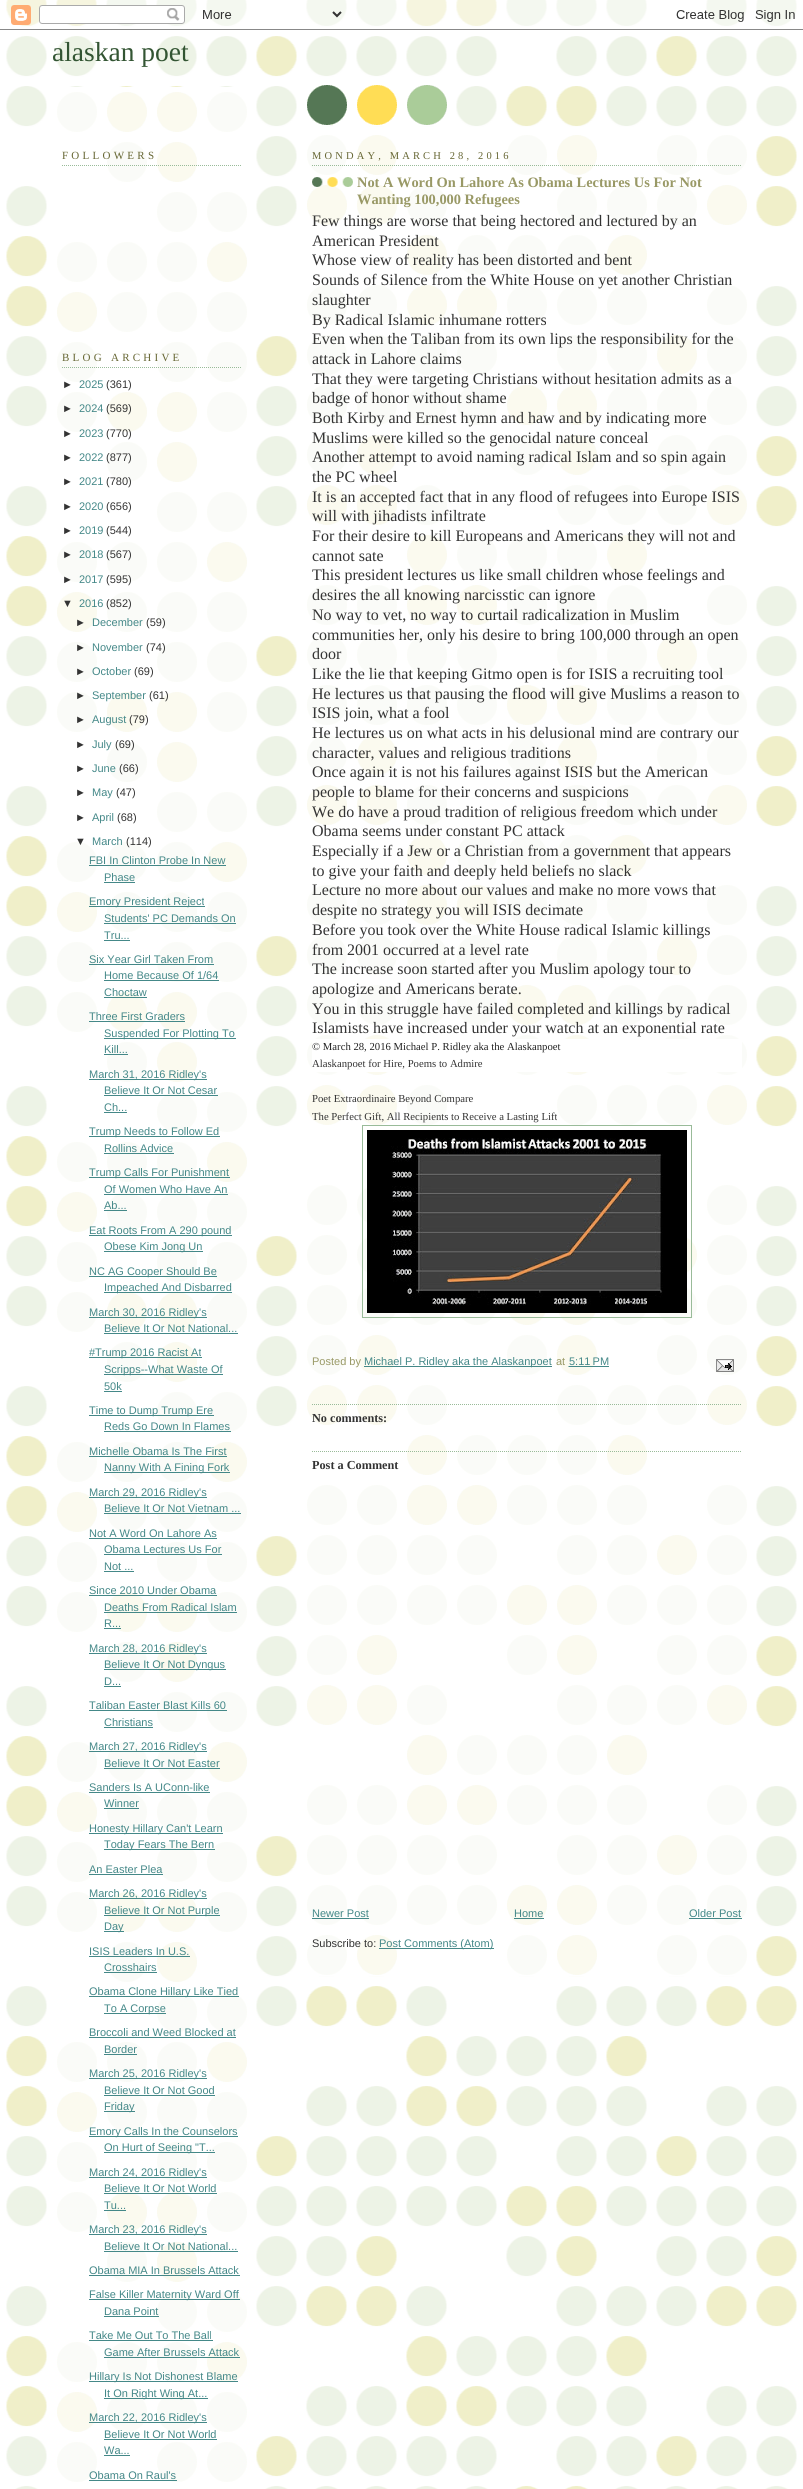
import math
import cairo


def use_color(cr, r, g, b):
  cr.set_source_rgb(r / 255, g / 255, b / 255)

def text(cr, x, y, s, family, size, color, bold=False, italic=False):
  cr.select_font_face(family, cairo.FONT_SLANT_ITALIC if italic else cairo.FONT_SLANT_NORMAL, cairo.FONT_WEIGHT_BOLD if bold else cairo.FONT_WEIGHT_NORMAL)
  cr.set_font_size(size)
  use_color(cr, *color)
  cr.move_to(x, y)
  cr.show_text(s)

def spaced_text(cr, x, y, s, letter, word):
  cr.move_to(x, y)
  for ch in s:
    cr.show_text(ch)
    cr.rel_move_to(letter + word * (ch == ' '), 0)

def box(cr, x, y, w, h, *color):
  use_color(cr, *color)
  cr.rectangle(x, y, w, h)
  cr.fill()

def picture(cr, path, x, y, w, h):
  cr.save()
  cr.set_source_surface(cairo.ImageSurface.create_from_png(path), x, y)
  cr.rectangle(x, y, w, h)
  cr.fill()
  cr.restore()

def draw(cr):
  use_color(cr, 255, 255, 255)
  cr.paint()
  picture(cr, "img_01.png", 6, 0, 791, 2489)
  picture(cr, "img_02.png", 0, 0, 803, 30)
  picture(cr, "img_03.png", 306, 85, 141, 41)
  picture(cr, "img_04.png", 56, 87, 191, 2402)
  cr.new_path()
  cr.move_to(62, 165.5)
  cr.line_to(242, 165.5)
  use_color(cr, 153, 187, 153)
  cr.set_line_width(1)
  cr.set_dash([1, 1])
  cr.stroke()
  cr.new_path()
  cr.move_to(62, 367.5)
  cr.line_to(242, 367.5)
  cr.stroke()
  box(cr, 89, 865, 137, 1, 68, 136, 136)
  box(cr, 104, 882, 31, 1, 68, 136, 136)
  box(cr, 89, 906, 116, 1, 68, 136, 136)
  box(cr, 104, 923, 132, 1, 68, 136, 136)
  box(cr, 104, 940, 26, 1, 68, 136, 136)
  box(cr, 89, 964, 125, 1, 68, 136, 136)
  box(cr, 104, 980, 115, 1, 68, 136, 136)
  box(cr, 104, 997, 43, 1, 68, 136, 136)
  box(cr, 89, 1021, 96, 1, 68, 136, 136)
  box(cr, 104, 1038, 132, 1, 68, 136, 136)
  box(cr, 104, 1054, 24, 1, 68, 136, 136)
  box(cr, 89, 1079, 118, 1, 68, 136, 136)
  box(cr, 104, 1095, 114, 1, 68, 136, 136)
  box(cr, 104, 1112, 23, 1, 68, 136, 136)
  box(cr, 89, 1136, 131, 1, 68, 136, 136)
  box(cr, 104, 1153, 70, 1, 68, 136, 136)
  box(cr, 89, 1177, 141, 1, 68, 136, 136)
  box(cr, 104, 1194, 124, 1, 68, 136, 136)
  box(cr, 104, 1210, 23, 1, 68, 136, 136)
  box(cr, 89, 1235, 143, 1, 68, 136, 136)
  box(cr, 104, 1251, 99, 1, 68, 136, 136)
  box(cr, 89, 1276, 128, 1, 68, 136, 136)
  box(cr, 104, 1292, 128, 1, 68, 136, 136)
  box(cr, 89, 1317, 118, 1, 68, 136, 136)
  box(cr, 104, 1333, 134, 1, 68, 136, 136)
  box(cr, 89, 1357, 113, 1, 68, 136, 136)
  box(cr, 104, 1374, 119, 1, 68, 136, 136)
  box(cr, 104, 1391, 18, 1, 68, 136, 136)
  box(cr, 89, 1415, 125, 1, 68, 136, 136)
  box(cr, 104, 1431, 127, 1, 68, 136, 136)
  box(cr, 89, 1456, 138, 1, 68, 136, 136)
  box(cr, 104, 1472, 126, 1, 68, 136, 136)
  box(cr, 89, 1497, 118, 1, 68, 136, 136)
  box(cr, 104, 1513, 137, 1, 68, 136, 136)
  box(cr, 89, 1538, 128, 1, 68, 136, 136)
  box(cr, 104, 1554, 118, 1, 68, 136, 136)
  box(cr, 104, 1571, 30, 1, 68, 136, 136)
  box(cr, 89, 1595, 128, 1, 68, 136, 136)
  box(cr, 104, 1612, 133, 1, 68, 136, 136)
  box(cr, 104, 1628, 17, 1, 68, 136, 136)
  box(cr, 89, 1653, 118, 1, 68, 136, 136)
  box(cr, 104, 1669, 122, 1, 68, 136, 136)
  box(cr, 104, 1686, 17, 1, 68, 136, 136)
  box(cr, 89, 1710, 138, 1, 68, 136, 136)
  box(cr, 104, 1727, 49, 1, 68, 136, 136)
  box(cr, 89, 1751, 118, 1, 68, 136, 136)
  box(cr, 104, 1768, 116, 1, 68, 136, 136)
  box(cr, 89, 1792, 121, 1, 68, 136, 136)
  box(cr, 104, 1808, 35, 1, 68, 136, 136)
  box(cr, 89, 1833, 134, 1, 68, 136, 136)
  box(cr, 104, 1849, 111, 1, 68, 136, 136)
  box(cr, 89, 1874, 74, 1, 68, 136, 136)
  box(cr, 89, 1898, 118, 1, 68, 136, 136)
  box(cr, 104, 1915, 116, 1, 68, 136, 136)
  box(cr, 104, 1931, 20, 1, 68, 136, 136)
  box(cr, 89, 1956, 101, 1, 68, 136, 136)
  box(cr, 104, 1972, 53, 1, 68, 136, 136)
  box(cr, 89, 1996, 150, 1, 68, 136, 136)
  box(cr, 104, 2013, 62, 1, 68, 136, 136)
  box(cr, 89, 2037, 147, 1, 68, 136, 136)
  box(cr, 104, 2054, 33, 1, 68, 136, 136)
  box(cr, 89, 2078, 118, 1, 68, 136, 136)
  box(cr, 104, 2095, 111, 1, 68, 136, 136)
  box(cr, 104, 2111, 31, 1, 68, 136, 136)
  box(cr, 89, 2136, 149, 1, 68, 136, 136)
  box(cr, 104, 2152, 111, 1, 68, 136, 136)
  box(cr, 89, 2177, 118, 1, 68, 136, 136)
  box(cr, 104, 2193, 113, 1, 68, 136, 136)
  box(cr, 104, 2210, 22, 1, 68, 136, 136)
  box(cr, 89, 2234, 118, 1, 68, 136, 136)
  box(cr, 104, 2251, 134, 1, 68, 136, 136)
  box(cr, 89, 2275, 151, 1, 68, 136, 136)
  box(cr, 89, 2299, 151, 1, 68, 136, 136)
  box(cr, 104, 2316, 55, 1, 68, 136, 136)
  box(cr, 89, 2340, 124, 1, 68, 136, 136)
  box(cr, 104, 2357, 136, 1, 68, 136, 136)
  box(cr, 89, 2381, 149, 1, 68, 136, 136)
  box(cr, 104, 2398, 104, 1, 68, 136, 136)
  box(cr, 89, 2422, 118, 1, 68, 136, 136)
  box(cr, 104, 2439, 113, 1, 68, 136, 136)
  box(cr, 104, 2455, 26, 1, 68, 136, 136)
  box(cr, 89, 2480, 88, 1, 68, 136, 136)
  picture(cr, "img_05.png", 306, 135, 441, 1841)
  cr.new_path()
  cr.move_to(312, 165.5)
  cr.line_to(742, 165.5)
  use_color(cr, 153, 187, 153)
  cr.stroke()
  picture(cr, "img_06.png", 312, 177, 41, 10)
  box(cr, 312, 1039, 430, 33, 255, 255, 255)
  cr.rectangle(362.5, 1125.5, 329, 192)
  use_color(cr, 153, 187, 153)
  cr.set_dash([])
  cr.stroke()
  picture(cr, "img_07.png", 367, 1130, 320, 183)
  box(cr, 364, 1366, 188, 1, 68, 136, 136)
  cr.new_path()
  cr.move_to(568.5, 1366.5)
  cr.line_to(609, 1366.5)
  cr.set_dash([1, 1])
  cr.stroke()
  box(cr, 569, 1366, 40, 1, 68, 136, 136)
  picture(cr, "img_08.png", 716, 1359, 18, 13)
  cr.new_path()
  cr.move_to(312, 1404.5)
  cr.line_to(742, 1404.5)
  use_color(cr, 153, 187, 153)
  cr.stroke()
  cr.new_path()
  cr.move_to(312, 1451.5)
  cr.line_to(742, 1451.5)
  cr.stroke()
  box(cr, 312, 1918, 57, 1, 68, 136, 136)
  box(cr, 514, 1918, 30, 1, 68, 136, 136)
  box(cr, 689, 1918, 53, 1, 68, 136, 136)
  box(cr, 379, 1948, 115, 1, 68, 136, 136)
  text(cr, 52, 61, "alaskan poet", "Liberation Serif", 27.5, (51, 85, 51))
  cr.set_font_size(11)
  use_color(cr, 102, 102, 51)
  spaced_text(cr, 62, 159, "FOLLOWERS", 3.25, 0)
  spaced_text(cr, 62, 361, "BLOG ARCHIVE", 3.25, 0)
  text(cr, 62, 388, "►", "Liberation Sans", 11, (51, 51, 51))
  text(cr, 79, 388, "2025", "Liberation Sans", 11, (68, 136, 136))
  text(cr, 106, 388, "(361)", "Liberation Sans", 11, (51, 51, 51))
  text(cr, 62, 412, "►", "Liberation Sans", 11, (51, 51, 51))
  text(cr, 79, 412, "2024", "Liberation Sans", 11, (68, 136, 136))
  text(cr, 106, 412, "(569)", "Liberation Sans", 11, (51, 51, 51))
  text(cr, 62, 437, "►", "Liberation Sans", 11, (51, 51, 51))
  text(cr, 79, 437, "2023", "Liberation Sans", 11, (68, 136, 136))
  text(cr, 106, 437, "(770)", "Liberation Sans", 11, (51, 51, 51))
  text(cr, 62, 461, "►", "Liberation Sans", 11, (51, 51, 51))
  text(cr, 79, 461, "2022", "Liberation Sans", 11, (68, 136, 136))
  text(cr, 106, 461, "(877)", "Liberation Sans", 11, (51, 51, 51))
  text(cr, 62, 485, "►", "Liberation Sans", 11, (51, 51, 51))
  text(cr, 79, 485, "2021", "Liberation Sans", 11, (68, 136, 136))
  text(cr, 106, 485, "(780)", "Liberation Sans", 11, (51, 51, 51))
  text(cr, 62, 510, "►", "Liberation Sans", 11, (51, 51, 51))
  text(cr, 79, 510, "2020", "Liberation Sans", 11, (68, 136, 136))
  text(cr, 106, 510, "(656)", "Liberation Sans", 11, (51, 51, 51))
  text(cr, 62, 534, "►", "Liberation Sans", 11, (51, 51, 51))
  text(cr, 79, 534, "2019", "Liberation Sans", 11, (68, 136, 136))
  text(cr, 106, 534, "(544)", "Liberation Sans", 11, (51, 51, 51))
  text(cr, 62, 558, "►", "Liberation Sans", 11, (51, 51, 51))
  text(cr, 79, 558, "2018", "Liberation Sans", 11, (68, 136, 136))
  text(cr, 106, 558, "(567)", "Liberation Sans", 11, (51, 51, 51))
  text(cr, 62, 583, "►", "Liberation Sans", 11, (51, 51, 51))
  text(cr, 79, 583, "2017", "Liberation Sans", 11, (68, 136, 136))
  text(cr, 106, 583, "(595)", "Liberation Sans", 11, (51, 51, 51))
  text(cr, 62, 607, "▼", "Liberation Sans", 11, (51, 51, 51))
  text(cr, 79, 607, "2016", "Liberation Sans", 11, (68, 136, 136))
  text(cr, 106, 607, "(852)", "Liberation Sans", 11, (51, 51, 51))
  text(cr, 75, 626, "►", "Liberation Sans", 11, (51, 51, 51))
  text(cr, 92, 626, "December", "Liberation Sans", 11, (68, 136, 136))
  text(cr, 146, 626, "(59)", "Liberation Sans", 11, (51, 51, 51))
  text(cr, 75, 651, "►", "Liberation Sans", 11, (51, 51, 51))
  text(cr, 92, 651, "November", "Liberation Sans", 11, (68, 136, 136))
  text(cr, 146, 651, "(74)", "Liberation Sans", 11, (51, 51, 51))
  text(cr, 75, 675, "►", "Liberation Sans", 11, (51, 51, 51))
  text(cr, 92, 675, "October", "Liberation Sans", 11, (68, 136, 136))
  text(cr, 134, 675, "(69)", "Liberation Sans", 11, (51, 51, 51))
  text(cr, 75, 699, "►", "Liberation Sans", 11, (51, 51, 51))
  text(cr, 92, 699, "September", "Liberation Sans", 11, (68, 136, 136))
  text(cr, 149, 699, "(61)", "Liberation Sans", 11, (51, 51, 51))
  text(cr, 75, 723, "►", "Liberation Sans", 11, (51, 51, 51))
  text(cr, 92, 723, "August", "Liberation Sans", 11, (68, 136, 136))
  text(cr, 129, 723, "(79)", "Liberation Sans", 11, (51, 51, 51))
  text(cr, 75, 748, "►", "Liberation Sans", 11, (51, 51, 51))
  text(cr, 92, 748, "July", "Liberation Sans", 11, (68, 136, 136))
  text(cr, 115, 748, "(69)", "Liberation Sans", 11, (51, 51, 51))
  text(cr, 75, 772, "►", "Liberation Sans", 11, (51, 51, 51))
  text(cr, 92, 772, "June", "Liberation Sans", 11, (68, 136, 136))
  text(cr, 119, 772, "(66)", "Liberation Sans", 11, (51, 51, 51))
  text(cr, 75, 796, "►", "Liberation Sans", 11, (51, 51, 51))
  text(cr, 92, 796, "May", "Liberation Sans", 11, (68, 136, 136))
  text(cr, 116, 796, "(47)", "Liberation Sans", 11, (51, 51, 51))
  text(cr, 75, 821, "►", "Liberation Sans", 11, (51, 51, 51))
  text(cr, 92, 821, "April", "Liberation Sans", 11, (68, 136, 136))
  text(cr, 117, 821, "(68)", "Liberation Sans", 11, (51, 51, 51))
  text(cr, 75, 845, "▼", "Liberation Sans", 11, (51, 51, 51))
  text(cr, 92, 845, "March", "Liberation Sans", 11, (68, 136, 136))
  text(cr, 126, 845, "(114)", "Liberation Sans", 11, (51, 51, 51))
  text(cr, 89, 864, "FBI In Clinton Probe In New", "Liberation Sans", 11, (68, 136, 136))
  text(cr, 104, 881, "Phase", "Liberation Sans", 11, (68, 136, 136))
  text(cr, 89, 905, "Emory President Reject", "Liberation Sans", 11, (68, 136, 136))
  text(cr, 104, 922, "Students' PC Demands On", "Liberation Sans", 11, (68, 136, 136))
  text(cr, 104, 939, "Tru...", "Liberation Sans", 11, (68, 136, 136))
  text(cr, 89, 963, "Six Year Girl Taken From", "Liberation Sans", 11, (68, 136, 136))
  text(cr, 104, 979, "Home Because Of 1/64", "Liberation Sans", 11, (68, 136, 136))
  text(cr, 104, 996, "Choctaw", "Liberation Sans", 11, (68, 136, 136))
  text(cr, 89, 1020, "Three First Graders", "Liberation Sans", 11, (68, 136, 136))
  text(cr, 104, 1037, "Suspended For Plotting To", "Liberation Sans", 11, (68, 136, 136))
  text(cr, 104, 1053, "Kill...", "Liberation Sans", 11, (68, 136, 136))
  text(cr, 89, 1078, "March 31, 2016 Ridley's", "Liberation Sans", 11, (68, 136, 136))
  text(cr, 104, 1094, "Believe It Or Not Cesar", "Liberation Sans", 11, (68, 136, 136))
  text(cr, 104, 1111, "Ch...", "Liberation Sans", 11, (68, 136, 136))
  text(cr, 89, 1135, "Trump Needs to Follow Ed", "Liberation Sans", 11, (68, 136, 136))
  text(cr, 104, 1152, "Rollins Advice", "Liberation Sans", 11, (68, 136, 136))
  text(cr, 89, 1176, "Trump Calls For Punishment", "Liberation Sans", 11, (68, 136, 136))
  text(cr, 104, 1193, "Of Women Who Have An", "Liberation Sans", 11, (68, 136, 136))
  text(cr, 104, 1209, "Ab...", "Liberation Sans", 11, (68, 136, 136))
  text(cr, 89, 1234, "Eat Roots From A 290 pound", "Liberation Sans", 11, (68, 136, 136))
  text(cr, 104, 1250, "Obese Kim Jong Un", "Liberation Sans", 11, (68, 136, 136))
  text(cr, 89, 1275, "NC AG Cooper Should Be", "Liberation Sans", 11, (68, 136, 136))
  text(cr, 104, 1291, "Impeached And Disbarred", "Liberation Sans", 11, (68, 136, 136))
  text(cr, 89, 1316, "March 30, 2016 Ridley's", "Liberation Sans", 11, (68, 136, 136))
  text(cr, 104, 1332, "Believe It Or Not National...", "Liberation Sans", 11, (68, 136, 136))
  text(cr, 89, 1356, "#Trump 2016 Racist At", "Liberation Sans", 11, (68, 136, 136))
  text(cr, 104, 1373, "Scripps--What Waste Of", "Liberation Sans", 11, (68, 136, 136))
  text(cr, 104, 1390, "50k", "Liberation Sans", 11, (68, 136, 136))
  text(cr, 89, 1414, "Time to Dump Trump Ere", "Liberation Sans", 11, (68, 136, 136))
  text(cr, 104, 1430, "Reds Go Down In Flames", "Liberation Sans", 11, (68, 136, 136))
  text(cr, 89, 1455, "Michelle Obama Is The First", "Liberation Sans", 11, (68, 136, 136))
  text(cr, 104, 1471, "Nanny With A Fining Fork", "Liberation Sans", 11, (68, 136, 136))
  text(cr, 89, 1496, "March 29, 2016 Ridley's", "Liberation Sans", 11, (68, 136, 136))
  text(cr, 104, 1512, "Believe It Or Not Vietnam ...", "Liberation Sans", 11, (68, 136, 136))
  text(cr, 89, 1537, "Not A Word On Lahore As", "Liberation Sans", 11, (68, 136, 136))
  text(cr, 104, 1553, "Obama Lectures Us For", "Liberation Sans", 11, (68, 136, 136))
  text(cr, 104, 1570, "Not ...", "Liberation Sans", 11, (68, 136, 136))
  text(cr, 89, 1594, "Since 2010 Under Obama", "Liberation Sans", 11, (68, 136, 136))
  text(cr, 104, 1611, "Deaths From Radical Islam", "Liberation Sans", 11, (68, 136, 136))
  text(cr, 104, 1627, "R...", "Liberation Sans", 11, (68, 136, 136))
  text(cr, 89, 1652, "March 28, 2016 Ridley's", "Liberation Sans", 11, (68, 136, 136))
  text(cr, 104, 1668, "Believe It Or Not Dyngus", "Liberation Sans", 11, (68, 136, 136))
  text(cr, 104, 1685, "D...", "Liberation Sans", 11, (68, 136, 136))
  text(cr, 89, 1709, "Taliban Easter Blast Kills 60", "Liberation Sans", 11, (68, 136, 136))
  text(cr, 104, 1726, "Christians", "Liberation Sans", 11, (68, 136, 136))
  text(cr, 89, 1750, "March 27, 2016 Ridley's", "Liberation Sans", 11, (68, 136, 136))
  text(cr, 104, 1767, "Believe It Or Not Easter", "Liberation Sans", 11, (68, 136, 136))
  text(cr, 89, 1791, "Sanders Is A UConn-like", "Liberation Sans", 11, (68, 136, 136))
  text(cr, 104, 1807, "Winner", "Liberation Sans", 11, (68, 136, 136))
  text(cr, 89, 1832, "Honesty Hillary Can't Learn", "Liberation Sans", 11, (68, 136, 136))
  text(cr, 104, 1848, "Today Fears The Bern", "Liberation Sans", 11, (68, 136, 136))
  text(cr, 89, 1873, "An Easter Plea", "Liberation Sans", 11, (68, 136, 136))
  text(cr, 89, 1897, "March 26, 2016 Ridley's", "Liberation Sans", 11, (68, 136, 136))
  text(cr, 104, 1914, "Believe It Or Not Purple", "Liberation Sans", 11, (68, 136, 136))
  text(cr, 104, 1930, "Day", "Liberation Sans", 11, (68, 136, 136))
  text(cr, 89, 1955, "ISIS Leaders In U.S.", "Liberation Sans", 11, (68, 136, 136))
  text(cr, 104, 1971, "Crosshairs", "Liberation Sans", 11, (68, 136, 136))
  text(cr, 89, 1995, "Obama Clone Hillary Like Tied", "Liberation Sans", 11, (68, 136, 136))
  text(cr, 104, 2012, "To A Corpse", "Liberation Sans", 11, (68, 136, 136))
  text(cr, 89, 2036, "Broccoli and Weed Blocked at", "Liberation Sans", 11, (68, 136, 136))
  text(cr, 104, 2053, "Border", "Liberation Sans", 11, (68, 136, 136))
  text(cr, 89, 2077, "March 25, 2016 Ridley's", "Liberation Sans", 11, (68, 136, 136))
  text(cr, 104, 2094, "Believe It Or Not Good", "Liberation Sans", 11, (68, 136, 136))
  text(cr, 104, 2110, "Friday", "Liberation Sans", 11, (68, 136, 136))
  text(cr, 89, 2135, "Emory Calls In the Counselors", "Liberation Sans", 11, (68, 136, 136))
  text(cr, 104, 2151, "On Hurt of Seeing \"T...", "Liberation Sans", 11, (68, 136, 136))
  text(cr, 89, 2176, "March 24, 2016 Ridley's", "Liberation Sans", 11, (68, 136, 136))
  text(cr, 104, 2192, "Believe It Or Not World", "Liberation Sans", 11, (68, 136, 136))
  text(cr, 104, 2209, "Tu...", "Liberation Sans", 11, (68, 136, 136))
  text(cr, 89, 2233, "March 23, 2016 Ridley's", "Liberation Sans", 11, (68, 136, 136))
  text(cr, 104, 2250, "Believe It Or Not National...", "Liberation Sans", 11, (68, 136, 136))
  text(cr, 89, 2274, "Obama MIA In Brussels Attack", "Liberation Sans", 11, (68, 136, 136))
  text(cr, 89, 2298, "False Killer Maternity Ward Off", "Liberation Sans", 11, (68, 136, 136))
  text(cr, 104, 2315, "Dana Point", "Liberation Sans", 11, (68, 136, 136))
  text(cr, 89, 2339, "Take Me Out To The Ball", "Liberation Sans", 11, (68, 136, 136))
  text(cr, 104, 2356, "Game After Brussels Attack", "Liberation Sans", 11, (68, 136, 136))
  text(cr, 89, 2380, "Hillary Is Not Dishonest Blame", "Liberation Sans", 11, (68, 136, 136))
  text(cr, 104, 2397, "It On Right Wing At...", "Liberation Sans", 11, (68, 136, 136))
  text(cr, 89, 2421, "March 22, 2016 Ridley's", "Liberation Sans", 11, (68, 136, 136))
  text(cr, 104, 2438, "Believe It Or Not World", "Liberation Sans", 11, (68, 136, 136))
  text(cr, 104, 2454, "Wa...", "Liberation Sans", 11, (68, 136, 136))
  text(cr, 89, 2479, "Obama On Raul's", "Liberation Sans", 11, (68, 136, 136))
  cr.select_font_face("Liberation Serif")
  cr.set_font_size(10.5)
  use_color(cr, 102, 102, 51)
  spaced_text(cr, 312, 159, "MONDAY, MARCH 28, 2016", 3.15, 0)
  text(cr, 357, 187, "Not A Word On Lahore As Obama Lectures Us For Not", "Liberation Serif", 14.4, (153, 153, 102), bold=True)
  text(cr, 357, 204, "Wanting 100,000 Refugees", "Liberation Serif", 14.4, (153, 153, 102), bold=True)
  text(cr, 312, 226, "Few things are worse that being hectored and lectured by an", "Liberation Serif", 16, (51, 51, 51))
  text(cr, 312, 246, "American President", "Liberation Serif", 16, (51, 51, 51))
  text(cr, 312, 265, "Whose view of reality has been distorted and bent", "Liberation Serif", 16, (51, 51, 51))
  text(cr, 312, 285, "Sounds of Silence from the White House on yet another Christian", "Liberation Serif", 16, (51, 51, 51))
  text(cr, 312, 305, "slaughter", "Liberation Serif", 16, (51, 51, 51))
  text(cr, 312, 325, "By Radical Islamic inhumane rotters", "Liberation Serif", 16, (51, 51, 51))
  text(cr, 312, 344, "Even when the Taliban from its own lips the responsibility for the", "Liberation Serif", 16, (51, 51, 51))
  text(cr, 312, 364, "attack in Lahore claims", "Liberation Serif", 16, (51, 51, 51))
  text(cr, 312, 384, "That they were targeting Christians without hesitation admits as a", "Liberation Serif", 16, (51, 51, 51))
  text(cr, 312, 403, "badge of honor without shame", "Liberation Serif", 16, (51, 51, 51))
  text(cr, 312, 423, "Both Kirby and Ernest hymn and haw and by indicating more", "Liberation Serif", 16, (51, 51, 51))
  text(cr, 312, 443, "Muslims were killed so the genocidal nature conceal", "Liberation Serif", 16, (51, 51, 51))
  text(cr, 312, 462, "Another attempt to avoid naming radical Islam and so spin again", "Liberation Serif", 16, (51, 51, 51))
  text(cr, 312, 482, "the PC wheel", "Liberation Serif", 16, (51, 51, 51))
  text(cr, 312, 502, "It is an accepted fact that in any flood of refugees into Europe ISIS", "Liberation Serif", 16, (51, 51, 51))
  text(cr, 312, 521, "will with jihadists infiltrate", "Liberation Serif", 16, (51, 51, 51))
  text(cr, 312, 541, "For their desire to kill Europeans and Americans they will not and", "Liberation Serif", 16, (51, 51, 51))
  text(cr, 312, 561, "cannot sate", "Liberation Serif", 16, (51, 51, 51))
  text(cr, 312, 580, "This president lectures us like small children whose feelings and", "Liberation Serif", 16, (51, 51, 51))
  text(cr, 312, 600, "desires the all knowing narcisstic can ignore", "Liberation Serif", 16, (51, 51, 51))
  text(cr, 312, 620, "No way to vet, no way to curtail radicalization in Muslim", "Liberation Serif", 16, (51, 51, 51))
  text(cr, 312, 640, "communities her, only his desire to bring 100,000 through an open", "Liberation Serif", 16, (51, 51, 51))
  text(cr, 312, 659, "door", "Liberation Serif", 16, (51, 51, 51))
  text(cr, 312, 679, "Like the lie that keeping Gitmo open is for ISIS a recruiting tool", "Liberation Serif", 16, (51, 51, 51))
  text(cr, 312, 699, "He lectures us that pausing the flood will give Muslims a reason to", "Liberation Serif", 16, (51, 51, 51))
  text(cr, 312, 718, "ISIS join, what a fool", "Liberation Serif", 16, (51, 51, 51))
  text(cr, 312, 738, "He lectures us on what acts in his delusional mind are contrary our", "Liberation Serif", 16, (51, 51, 51))
  text(cr, 312, 758, "character, values and religious traditions", "Liberation Serif", 16, (51, 51, 51))
  text(cr, 312, 777, "Once again it is not his failures against ISIS but the American", "Liberation Serif", 16, (51, 51, 51))
  text(cr, 312, 797, "people to blame for their concerns and suspicions", "Liberation Serif", 16, (51, 51, 51))
  text(cr, 312, 817, "We do have a proud tradition of religious freedom which under", "Liberation Serif", 16, (51, 51, 51))
  text(cr, 312, 836, "Obama seems under constant PC attack", "Liberation Serif", 16, (51, 51, 51))
  text(cr, 312, 856, "Especially if a Jew or a Christian from a government that appears", "Liberation Serif", 16, (51, 51, 51))
  text(cr, 312, 876, "to give your faith and deeply held beliefs no slack", "Liberation Serif", 16, (51, 51, 51))
  text(cr, 312, 895, "Lecture no more about our values and make no more vows that", "Liberation Serif", 16, (51, 51, 51))
  text(cr, 312, 915, "despite no strategy you will ISIS decimate", "Liberation Serif", 16, (51, 51, 51))
  text(cr, 312, 935, "Before you took over the White House radical Islamic killings", "Liberation Serif", 16, (51, 51, 51))
  text(cr, 312, 955, "from 2001 occurred at a level rate", "Liberation Serif", 16, (51, 51, 51))
  text(cr, 312, 974, "The increase soon started after you Muslim apology tour to", "Liberation Serif", 16, (51, 51, 51))
  text(cr, 312, 994, "apologize and Americans berate.", "Liberation Serif", 16, (51, 51, 51))
  text(cr, 312, 1014, "You in this struggle have failed completed and killings by radical", "Liberation Serif", 16, (51, 51, 51))
  text(cr, 312, 1033, "Islamists have increased under your watch at an exponential rate", "Liberation Serif", 16, (51, 51, 51))
  text(cr, 312, 1050, "© March 28, 2016 Michael P. Ridley aka the Alaskanpoet", "Liberation Serif", 10.7, (34, 34, 34))
  text(cr, 312, 1067, "Alaskanpoet for Hire, Poems to Admire", "Liberation Serif", 10.7, (51, 51, 51))
  text(cr, 312, 1102, "Poet Extraordinaire Beyond Compare", "Liberation Serif", 10.7, (51, 51, 51))
  text(cr, 312, 1120, "The Perfect Gift, All Recipients to Receive a Lasting Lift", "Liberation Serif", 10.7, (51, 51, 51))
  text(cr, 312, 1365, "Posted by", "Liberation Sans", 11, (153, 153, 102))
  text(cr, 364, 1365, "Michael P. Ridley aka the Alaskanpoet", "Liberation Sans", 11, (68, 136, 136))
  text(cr, 556, 1365, "at", "Liberation Sans", 11, (153, 153, 102))
  text(cr, 569, 1365, "5:11 PM", "Liberation Sans", 11, (68, 136, 136))
  text(cr, 312, 1422, "No comments:", "Liberation Serif", 12.25, (51, 51, 51), bold=True)
  text(cr, 312, 1469, "Post a Comment", "Liberation Serif", 12.25, (51, 51, 51), bold=True)
  text(cr, 312, 1917, "Newer Post", "Liberation Sans", 11, (68, 136, 136))
  text(cr, 514, 1917, "Home", "Liberation Sans", 11, (68, 136, 136))
  text(cr, 689, 1917, "Older Post", "Liberation Sans", 11, (68, 136, 136))
  text(cr, 312, 1947, "Subscribe to:", "Liberation Sans", 11, (51, 51, 51))
  text(cr, 379, 1947, "Post Comments (Atom)", "Liberation Sans", 11, (68, 136, 136))


surface = cairo.ImageSurface(cairo.FORMAT_RGB24, 803, 2489)
cr = cairo.Context(surface)
options = cairo.FontOptions()
options.set_hint_metrics(cairo.HINT_METRICS_OFF)
options.set_hint_style(cairo.HINT_STYLE_NONE)
cr.set_font_options(options)
cr.set_miter_limit(4)
draw(cr)
surface.write_to_png("out.png")
